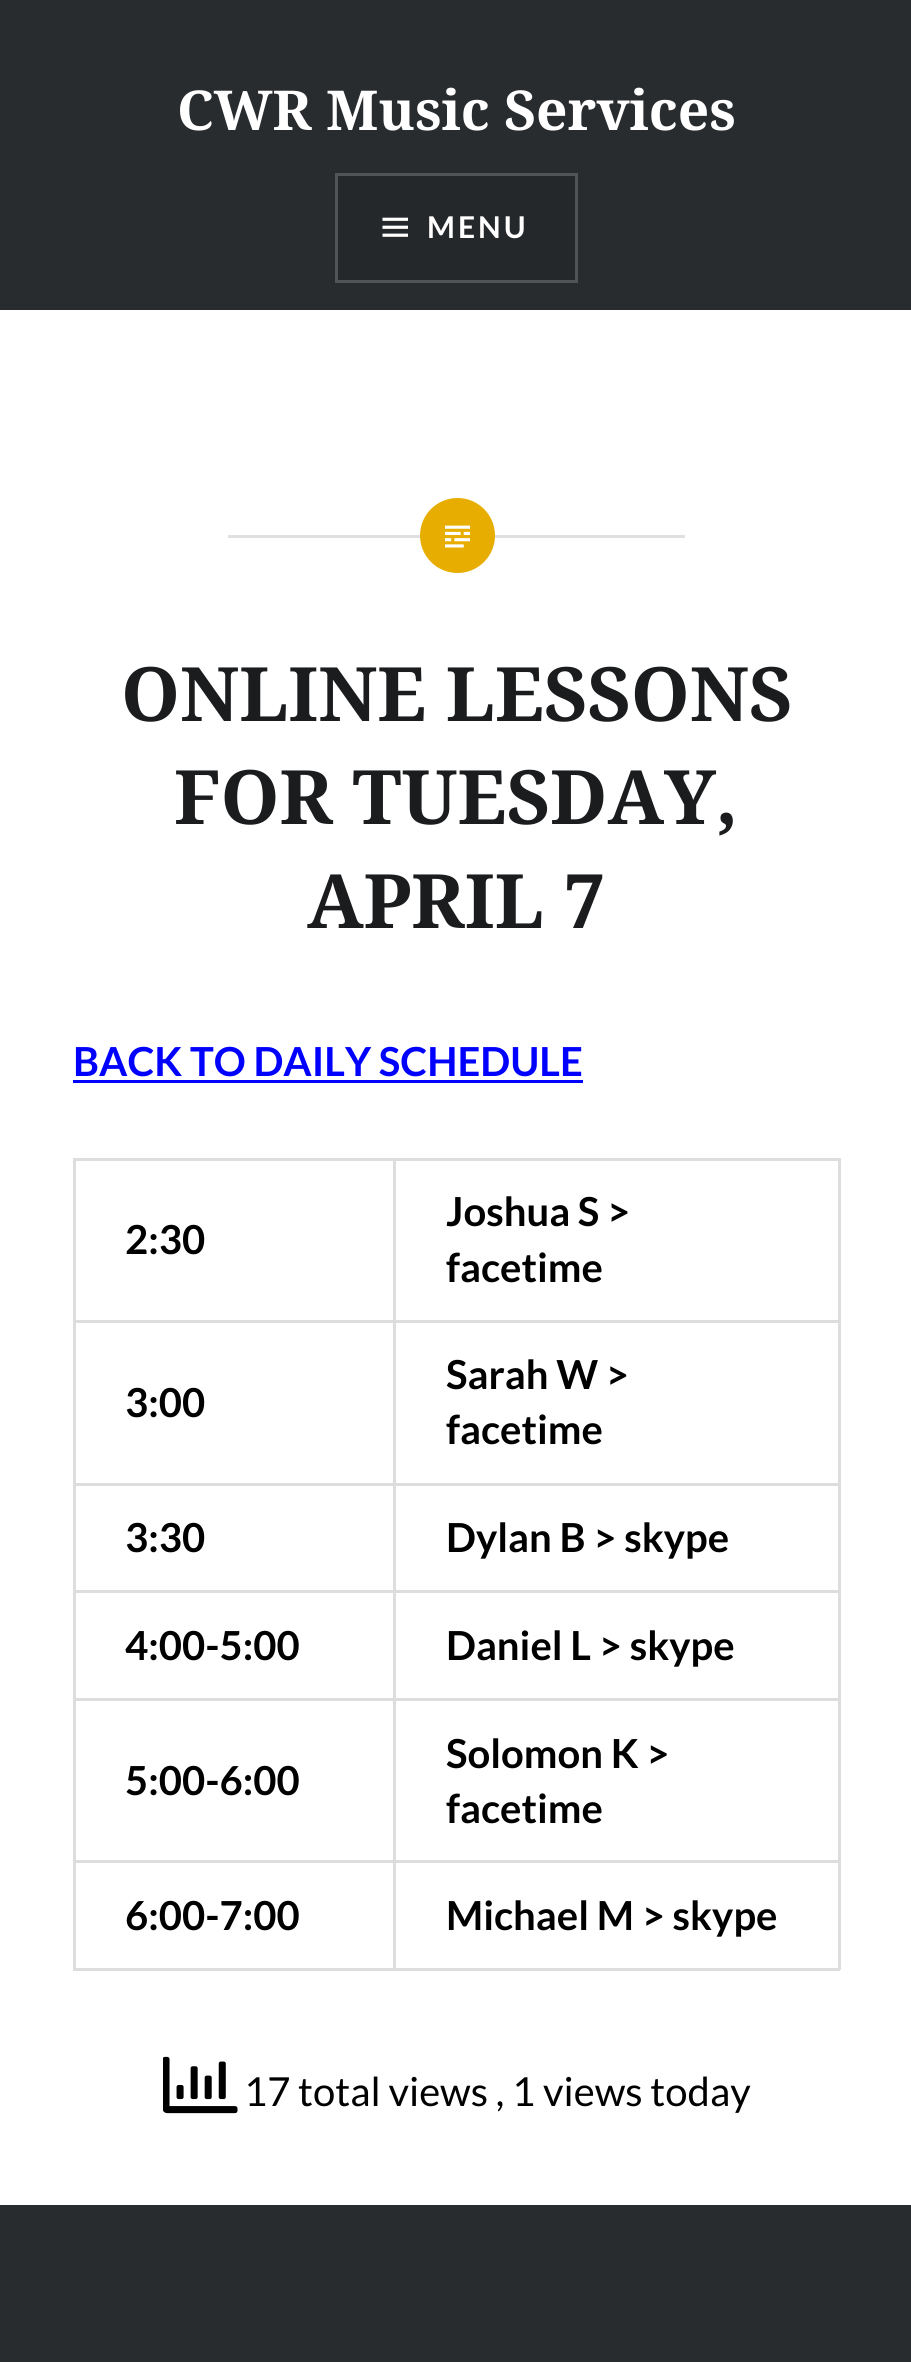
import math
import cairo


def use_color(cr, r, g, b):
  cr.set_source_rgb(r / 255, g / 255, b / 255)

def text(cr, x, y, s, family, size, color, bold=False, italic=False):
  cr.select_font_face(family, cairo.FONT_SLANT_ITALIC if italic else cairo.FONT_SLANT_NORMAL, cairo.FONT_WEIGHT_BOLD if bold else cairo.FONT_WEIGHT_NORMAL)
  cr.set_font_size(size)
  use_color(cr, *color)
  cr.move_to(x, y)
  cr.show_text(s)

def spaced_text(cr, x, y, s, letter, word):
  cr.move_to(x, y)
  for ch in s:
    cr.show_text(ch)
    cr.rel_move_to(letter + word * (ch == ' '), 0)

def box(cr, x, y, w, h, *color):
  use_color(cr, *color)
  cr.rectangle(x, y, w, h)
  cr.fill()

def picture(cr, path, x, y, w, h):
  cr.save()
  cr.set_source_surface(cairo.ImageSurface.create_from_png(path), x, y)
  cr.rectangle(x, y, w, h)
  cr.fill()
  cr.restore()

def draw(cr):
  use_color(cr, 255, 255, 255)
  cr.paint()
  box(cr, 0, 0, 911, 310, 41, 44, 47)
  use_color(cr, 37, 40, 42)
  cr.rectangle(336.5, 174.5, 240, 107)
  cr.fill_preserve()
  use_color(cr, 81, 83, 85)
  cr.set_line_width(3)
  cr.stroke()
  picture(cr, "img_01.png", 382, 217, 26, 20)
  box(cr, 228, 535, 457, 3, 224, 224, 224)
  use_color(cr, 231, 174, 1)
  cr.arc(457.5, 535.5, 37.5, 0, 2 * math.pi)
  cr.fill()
  picture(cr, "img_02.png", 445, 525, 25, 23)
  box(cr, 73, 1080, 510, 3, 0, 0, 255)
  box(cr, 73, 1158, 767, 3, 221, 221, 221)
  box(cr, 838, 1158, 3, 812, 221, 221, 221)
  box(cr, 73, 1968, 767, 3, 221, 221, 221)
  box(cr, 73, 1158, 3, 812, 221, 221, 221)
  box(cr, 393, 1860, 3, 110, 221, 221, 221)
  box(cr, 393, 1860, 447, 3, 221, 221, 221)
  box(cr, 393, 1698, 3, 165, 221, 221, 221)
  box(cr, 393, 1698, 447, 3, 221, 221, 221)
  box(cr, 393, 1590, 3, 110, 221, 221, 221)
  box(cr, 393, 1590, 447, 3, 221, 221, 221)
  box(cr, 393, 1483, 3, 110, 221, 221, 221)
  box(cr, 393, 1483, 447, 3, 221, 221, 221)
  box(cr, 393, 1320, 3, 165, 221, 221, 221)
  box(cr, 393, 1320, 447, 3, 221, 221, 221)
  box(cr, 393, 1158, 3, 165, 221, 221, 221)
  box(cr, 73, 1320, 322, 3, 221, 221, 221)
  box(cr, 73, 1483, 322, 3, 221, 221, 221)
  box(cr, 73, 1590, 322, 3, 221, 221, 221)
  box(cr, 73, 1698, 322, 3, 221, 221, 221)
  box(cr, 73, 1860, 322, 3, 221, 221, 221)
  picture(cr, "img_03.png", 163, 2056, 75, 58)
  box(cr, 0, 2205, 911, 157, 41, 44, 47)
  text(cr, 177, 130, "CWR Music Services", "Noto Serif", 55, (255, 255, 255), bold=True)
  cr.select_font_face("Lato", cairo.FONT_SLANT_NORMAL, cairo.FONT_WEIGHT_BOLD)
  cr.set_font_size(30)
  spaced_text(cr, 427, 238, "MENU", 3, 0)
  text(cr, 121, 721, "ONLINE LESSONS", "Noto Serif", 75, (26, 28, 30), bold=True)
  text(cr, 174, 824, "FOR TUESDAY,", "Noto Serif", 75, (26, 28, 30), bold=True)
  text(cr, 307, 928, "APRIL 7", "Noto Serif", 75, (26, 28, 30), bold=True)
  text(cr, 73, 1076, "BACK TO DAILY SCHEDULE", "Lato", 40, (0, 0, 255), bold=True)
  text(cr, 125, 1254, "2:30", "Lato", 40, (0, 0, 0), bold=True)
  text(cr, 446, 1226, "Joshua S >", "Lato", 40, (0, 0, 0), bold=True)
  text(cr, 446, 1282, "facetime", "Lato", 40, (0, 0, 0), bold=True)
  text(cr, 125, 1417, "3:00", "Lato", 40, (0, 0, 0), bold=True)
  text(cr, 446, 1389, "Sarah W >", "Lato", 40, (0, 0, 0), bold=True)
  text(cr, 446, 1444, "facetime", "Lato", 40, (0, 0, 0), bold=True)
  text(cr, 125, 1552, "3:30", "Lato", 40, (0, 0, 0), bold=True)
  text(cr, 446, 1552, "Dylan B > skype", "Lato", 40, (0, 0, 0), bold=True)
  text(cr, 125, 1660, "4:00-5:00", "Lato", 40, (0, 0, 0), bold=True)
  text(cr, 446, 1660, "Daniel L > skype", "Lato", 40, (0, 0, 0), bold=True)
  text(cr, 125, 1795, "5:00-6:00", "Lato", 40, (0, 0, 0), bold=True)
  text(cr, 446, 1768, "Solomon K >", "Lato", 40, (0, 0, 0), bold=True)
  text(cr, 446, 1823, "facetime", "Lato", 40, (0, 0, 0), bold=True)
  text(cr, 125, 1930, "6:00-7:00", "Lato", 40, (0, 0, 0), bold=True)
  text(cr, 446, 1930, "Michael M > skype", "Lato", 40, (0, 0, 0), bold=True)
  text(cr, 244, 2106, "17 total views , 1 views today", "Lato", 40, (0, 0, 0))


surface = cairo.ImageSurface(cairo.FORMAT_RGB24, 911, 2362)
cr = cairo.Context(surface)
options = cairo.FontOptions()
options.set_hint_metrics(cairo.HINT_METRICS_OFF)
options.set_hint_style(cairo.HINT_STYLE_NONE)
cr.set_font_options(options)
cr.set_miter_limit(4)
draw(cr)
surface.write_to_png("out.png")
